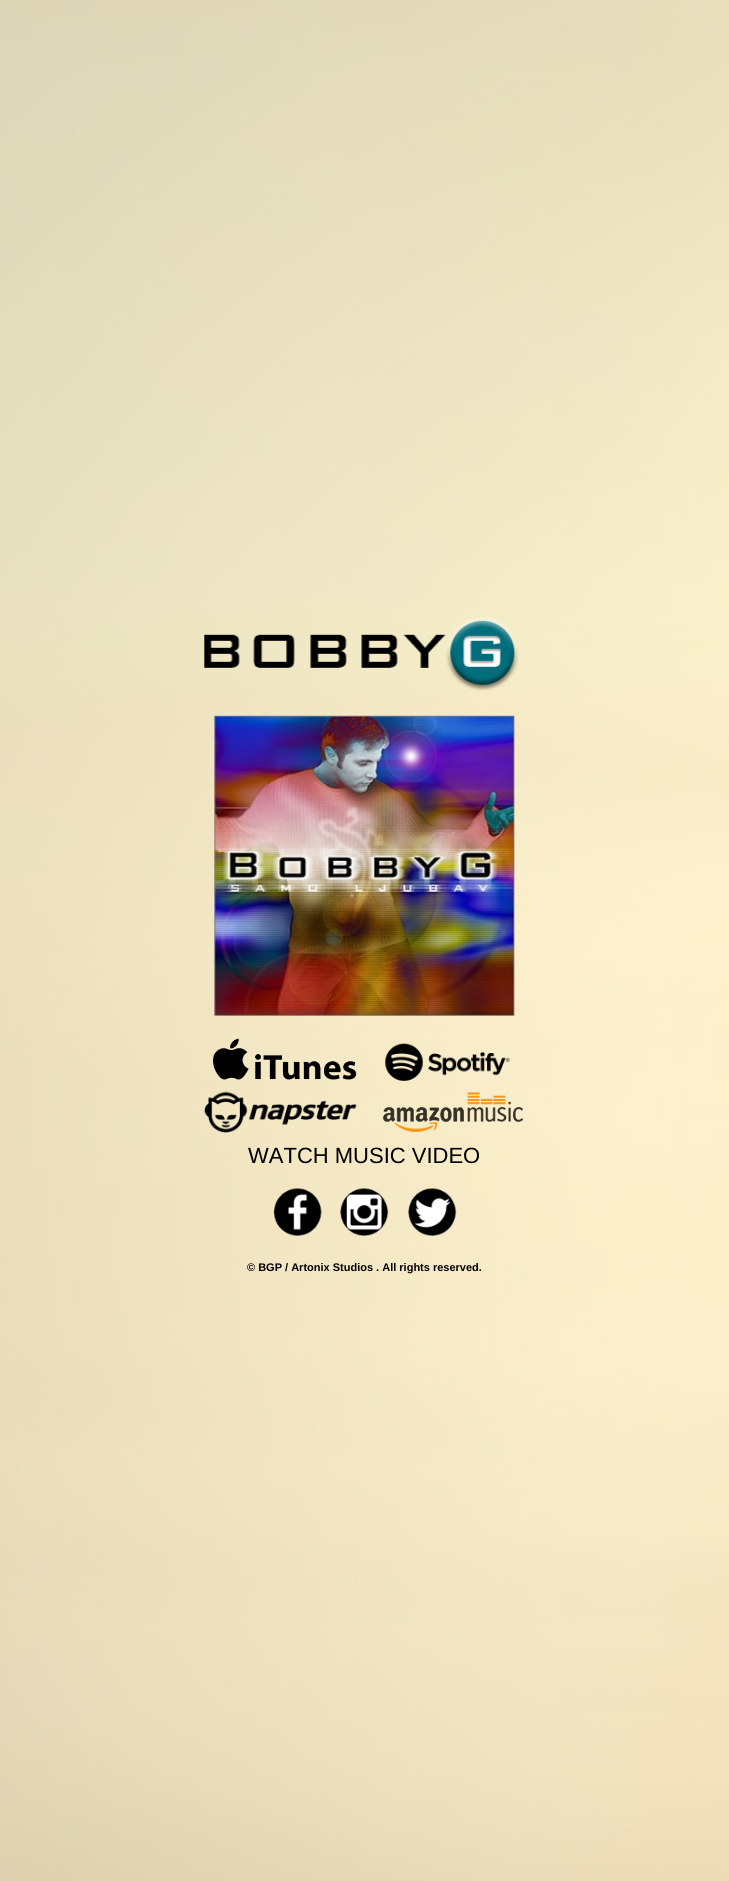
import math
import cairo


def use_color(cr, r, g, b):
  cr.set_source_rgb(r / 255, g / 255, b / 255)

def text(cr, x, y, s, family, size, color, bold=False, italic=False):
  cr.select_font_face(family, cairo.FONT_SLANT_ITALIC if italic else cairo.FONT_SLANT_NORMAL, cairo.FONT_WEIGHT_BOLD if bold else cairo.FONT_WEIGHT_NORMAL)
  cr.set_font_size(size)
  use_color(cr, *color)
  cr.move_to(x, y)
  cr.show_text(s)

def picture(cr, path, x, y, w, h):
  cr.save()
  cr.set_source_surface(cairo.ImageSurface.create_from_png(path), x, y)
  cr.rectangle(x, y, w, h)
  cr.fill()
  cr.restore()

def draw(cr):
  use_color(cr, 255, 255, 255)
  cr.paint()
  picture(cr, "img_01.png", 0, 0, 729, 1881)
  picture(cr, "img_02.png", 204, 616, 315, 75)
  picture(cr, "img_03.png", 214, 715, 301, 301)
  picture(cr, "img_04.png", 213, 1038, 144, 42)
  picture(cr, "img_05.png", 385, 1043, 126, 38)
  picture(cr, "img_06.png", 204, 1091, 153, 42)
  picture(cr, "img_07.png", 383, 1092, 140, 40)
  picture(cr, "img_08.png", 273, 1188, 49, 48)
  picture(cr, "img_09.png", 340, 1188, 49, 48)
  picture(cr, "img_10.png", 408, 1188, 49, 48)
  text(cr, 248, 1163, "WATCH MUSIC VIDEO", "Liberation Sans", 22, (0, 0, 0))
  text(cr, 247, 1271, "© BGP / Artonix Studios . All rights reserved.", "Liberation Sans", 11, (0, 0, 0), bold=True)


surface = cairo.ImageSurface(cairo.FORMAT_RGB24, 729, 1881)
cr = cairo.Context(surface)
options = cairo.FontOptions()
options.set_hint_metrics(cairo.HINT_METRICS_OFF)
options.set_hint_style(cairo.HINT_STYLE_NONE)
cr.set_font_options(options)
cr.set_miter_limit(4)
draw(cr)
surface.write_to_png("out.png")
